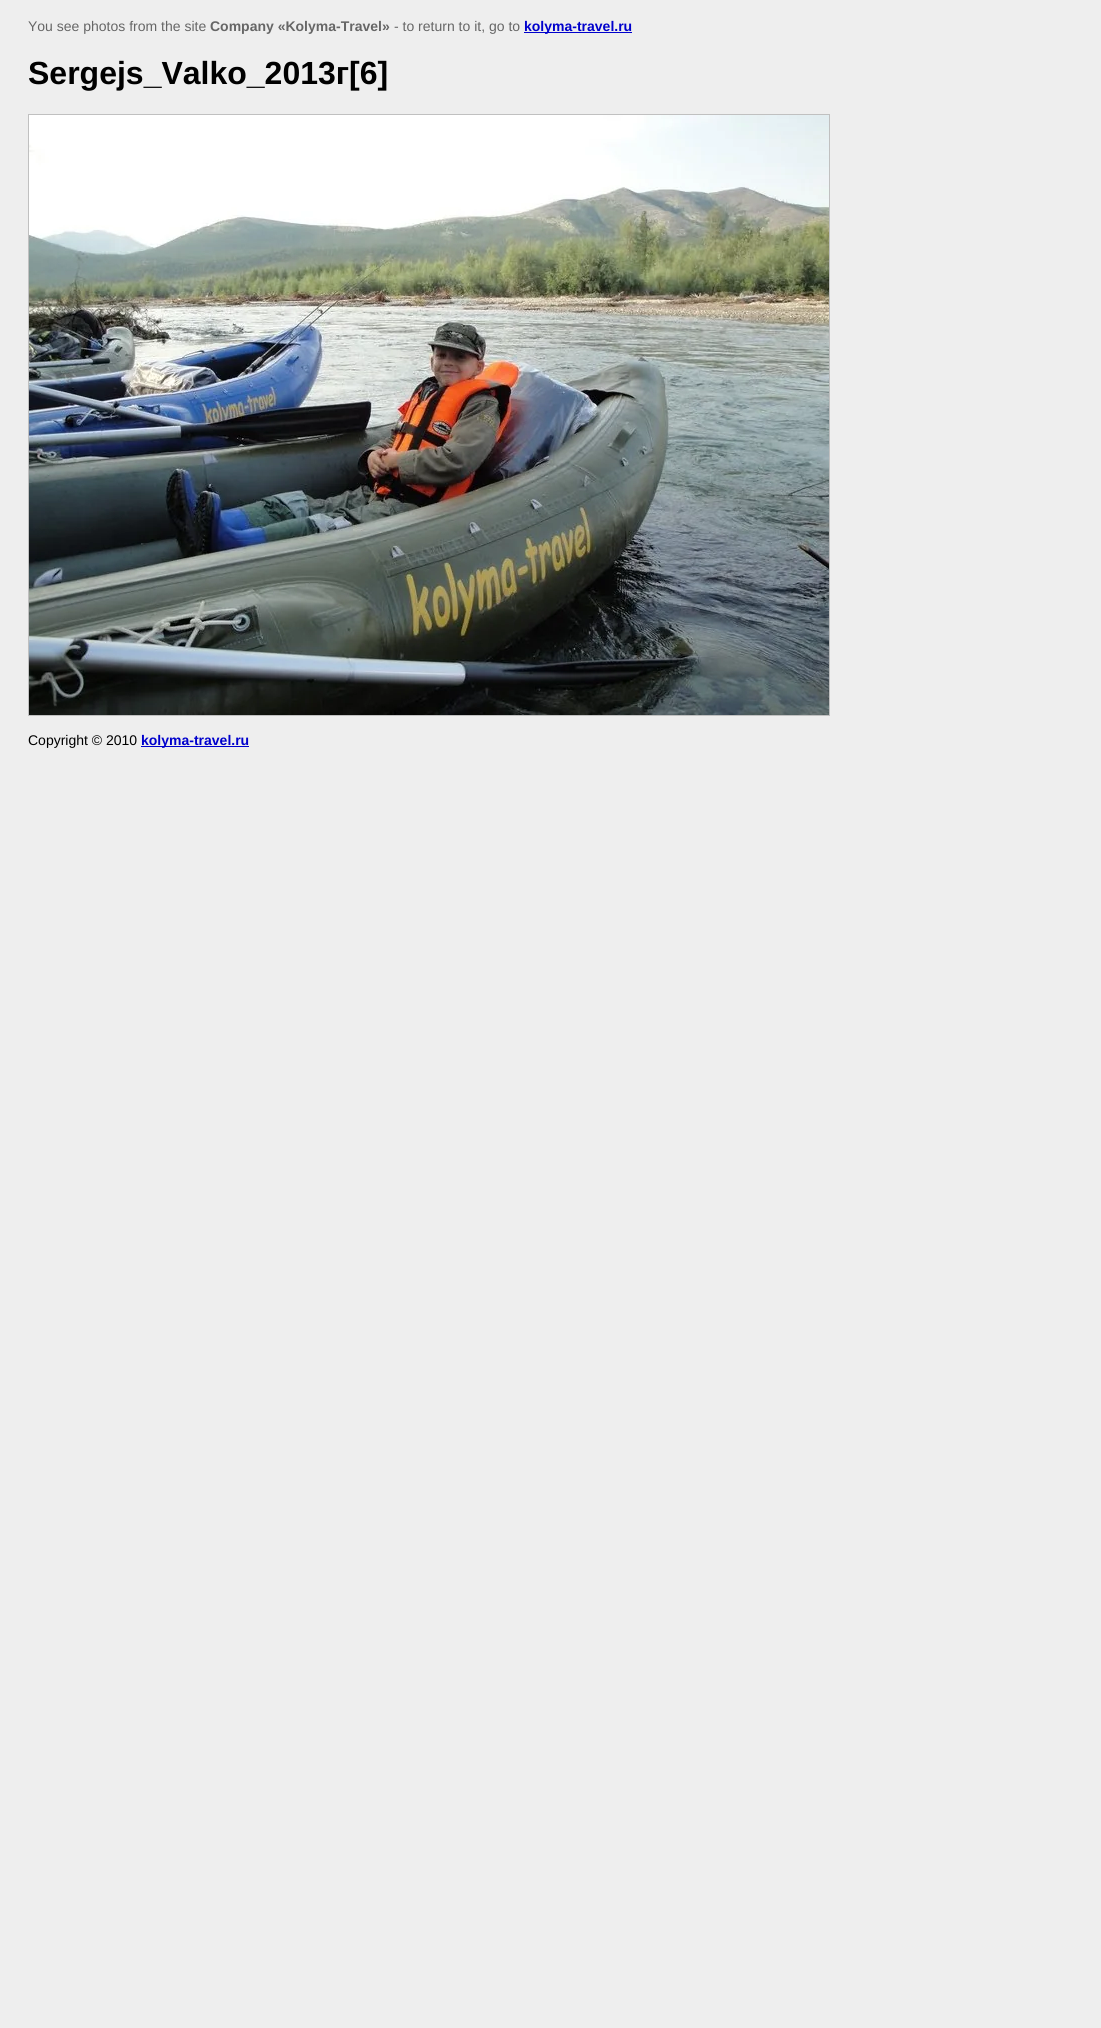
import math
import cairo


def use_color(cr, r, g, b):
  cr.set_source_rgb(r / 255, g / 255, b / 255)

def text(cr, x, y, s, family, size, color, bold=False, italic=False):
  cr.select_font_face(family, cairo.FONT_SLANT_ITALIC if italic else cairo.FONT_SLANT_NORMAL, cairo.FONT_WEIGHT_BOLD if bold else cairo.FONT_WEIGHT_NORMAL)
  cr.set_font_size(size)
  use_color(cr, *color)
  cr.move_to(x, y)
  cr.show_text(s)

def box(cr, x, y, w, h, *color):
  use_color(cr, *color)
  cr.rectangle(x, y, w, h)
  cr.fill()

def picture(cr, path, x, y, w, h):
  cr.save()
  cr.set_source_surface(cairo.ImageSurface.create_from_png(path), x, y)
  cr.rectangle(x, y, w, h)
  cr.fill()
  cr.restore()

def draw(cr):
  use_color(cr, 238, 238, 238)
  cr.paint()
  box(cr, 524, 32, 108, 1, 0, 0, 204)
  cr.rectangle(28.5, 114.5, 801, 601)
  use_color(cr, 192, 192, 192)
  cr.set_line_width(1)
  cr.stroke()
  picture(cr, "img_01.png", 29, 115, 800, 600)
  box(cr, 141, 746, 108, 1, 0, 0, 204)
  text(cr, 28, 31, "You see photos from the site", "Liberation Sans", 14, (102, 102, 102))
  text(cr, 210, 31, "Company «Kolyma-Travel»", "Liberation Sans", 14, (102, 102, 102), bold=True)
  text(cr, 394, 31, "- to return to it, go to", "Liberation Sans", 14, (102, 102, 102))
  text(cr, 524, 31, "kolyma-travel.ru", "Liberation Sans", 14, (0, 0, 204), bold=True)
  text(cr, 28, 84, "Sergejs_Valko_2013г[6]", "Liberation Sans", 32, (0, 0, 0), bold=True)
  text(cr, 28, 745, "Сopyright © 2010", "Liberation Sans", 14, (0, 0, 0))
  text(cr, 141, 745, "kolyma-travel.ru", "Liberation Sans", 14, (0, 0, 204), bold=True)


surface = cairo.ImageSurface(cairo.FORMAT_RGB24, 1101, 2028)
cr = cairo.Context(surface)
options = cairo.FontOptions()
options.set_hint_metrics(cairo.HINT_METRICS_OFF)
options.set_hint_style(cairo.HINT_STYLE_NONE)
cr.set_font_options(options)
cr.set_miter_limit(4)
draw(cr)
surface.write_to_png("out.png")
